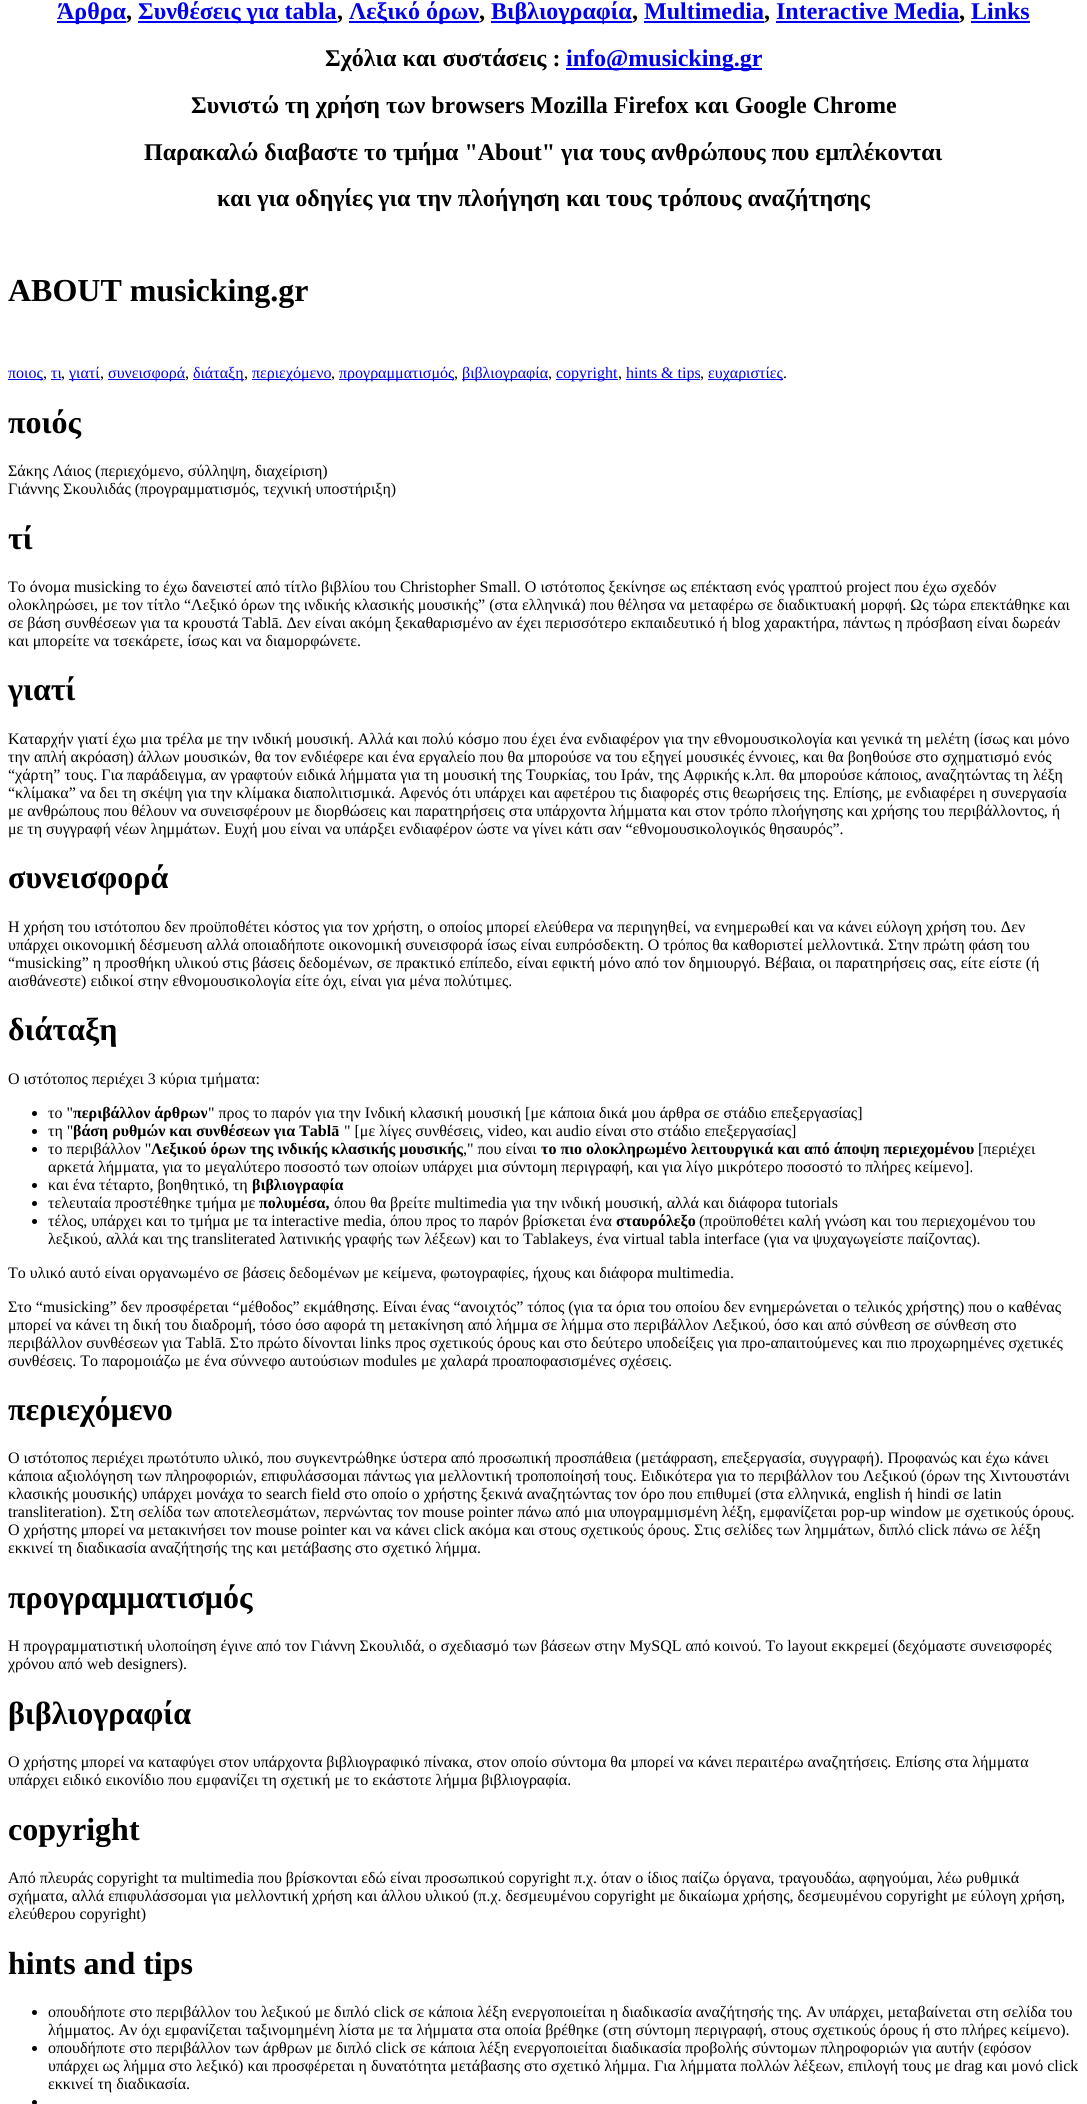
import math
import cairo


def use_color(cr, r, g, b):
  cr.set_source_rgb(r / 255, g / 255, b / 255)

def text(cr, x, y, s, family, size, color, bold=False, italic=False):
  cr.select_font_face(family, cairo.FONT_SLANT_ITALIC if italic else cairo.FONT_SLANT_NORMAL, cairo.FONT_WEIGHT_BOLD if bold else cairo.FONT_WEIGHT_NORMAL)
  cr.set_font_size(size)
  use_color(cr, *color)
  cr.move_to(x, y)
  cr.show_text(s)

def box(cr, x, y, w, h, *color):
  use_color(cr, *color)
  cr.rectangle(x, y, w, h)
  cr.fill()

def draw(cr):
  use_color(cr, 255, 255, 255)
  cr.paint()
  box(cr, 57, 21, 69, 2, 0, 0, 238)
  box(cr, 138, 21, 199, 2, 0, 0, 238)
  box(cr, 349, 21, 130, 2, 0, 0, 238)
  box(cr, 491, 21, 141, 2, 0, 0, 238)
  box(cr, 644, 21, 120, 2, 0, 0, 238)
  box(cr, 776, 21, 183, 2, 0, 0, 238)
  box(cr, 971, 21, 59, 2, 0, 0, 238)
  box(cr, 566, 68, 196, 2, 0, 0, 238)
  box(cr, 8, 379, 35, 1, 0, 0, 238)
  box(cr, 51, 379, 10, 1, 0, 0, 238)
  box(cr, 69, 379, 31, 1, 0, 0, 238)
  box(cr, 108, 379, 77, 1, 0, 0, 238)
  box(cr, 193, 379, 51, 1, 0, 0, 238)
  box(cr, 252, 379, 79, 1, 0, 0, 238)
  box(cr, 339, 379, 115, 1, 0, 0, 238)
  box(cr, 462, 379, 86, 1, 0, 0, 238)
  box(cr, 556, 379, 62, 1, 0, 0, 238)
  box(cr, 626, 379, 74, 1, 0, 0, 238)
  box(cr, 708, 379, 75, 1, 0, 0, 238)
  use_color(cr, 0, 0, 0)
  cr.arc(34.5, 1113.5, 2.5, 0, 2 * math.pi)
  cr.fill()
  cr.arc(34.5, 1131.5, 2.5, 0, 2 * math.pi)
  cr.fill()
  cr.arc(34.5, 1149.5, 2.5, 0, 2 * math.pi)
  cr.fill()
  cr.arc(34.5, 1185.5, 2.5, 0, 2 * math.pi)
  cr.fill()
  cr.arc(34.5, 1203.5, 2.5, 0, 2 * math.pi)
  cr.fill()
  cr.arc(34.5, 1221.5, 2.5, 0, 2 * math.pi)
  cr.fill()
  cr.arc(34.5, 2012.5, 2.5, 0, 2 * math.pi)
  cr.fill()
  cr.arc(34.5, 2048.5, 2.5, 0, 2 * math.pi)
  cr.fill()
  cr.arc(34.5, 2102.5, 2.5, 0, 2 * math.pi)
  cr.fill()
  text(cr, 57, 19, "Άρθρα", "Liberation Serif", 24, (0, 0, 238), bold=True)
  text(cr, 126, 19, ",", "Liberation Serif", 24, (0, 0, 0), bold=True)
  text(cr, 138, 19, "Συνθέσεις για tabla", "Liberation Serif", 24, (0, 0, 238), bold=True)
  text(cr, 337, 19, ",", "Liberation Serif", 24, (0, 0, 0), bold=True)
  text(cr, 349, 19, "Λεξικό όρων", "Liberation Serif", 24, (0, 0, 238), bold=True)
  text(cr, 479, 19, ",", "Liberation Serif", 24, (0, 0, 0), bold=True)
  text(cr, 491, 19, "Βιβλιογραφία", "Liberation Serif", 24, (0, 0, 238), bold=True)
  text(cr, 632, 19, ",", "Liberation Serif", 24, (0, 0, 0), bold=True)
  text(cr, 644, 19, "Multimedia", "Liberation Serif", 24, (0, 0, 238), bold=True)
  text(cr, 764, 19, ",", "Liberation Serif", 24, (0, 0, 0), bold=True)
  text(cr, 776, 19, "Interactive Media", "Liberation Serif", 24, (0, 0, 238), bold=True)
  text(cr, 959, 19, ",", "Liberation Serif", 24, (0, 0, 0), bold=True)
  text(cr, 971, 19, "Links", "Liberation Serif", 24, (0, 0, 238), bold=True)
  text(cr, 325, 66, "Σχόλια και συστάσεις :", "Liberation Serif", 24, (0, 0, 0), bold=True)
  text(cr, 566, 66, "info@musicking.gr", "Liberation Serif", 24, (0, 0, 238), bold=True)
  text(cr, 191, 113, "Συνιστώ τη χρήση των browsers Mozilla Firefox και Google Chrome", "Liberation Serif", 24, (0, 0, 0), bold=True)
  text(cr, 144, 160, "Παρακαλώ διαβαστε το τμήμα \"About\" για τους ανθρώπους που εμπλέκονται", "Liberation Serif", 24, (0, 0, 0), bold=True)
  text(cr, 217, 206, "και για οδηγίες για την πλοήγηση και τους τρόπους αναζήτησης", "Liberation Serif", 24, (0, 0, 0), bold=True)
  text(cr, 8, 301, "ABOUT musicking.gr", "Liberation Serif", 32, (0, 0, 0), bold=True)
  text(cr, 8, 378, "ποιος", "Liberation Serif", 16, (0, 0, 238))
  text(cr, 43, 378, ",", "Liberation Serif", 16, (0, 0, 0))
  text(cr, 51, 378, "τι", "Liberation Serif", 16, (0, 0, 238))
  text(cr, 61, 378, ",", "Liberation Serif", 16, (0, 0, 0))
  text(cr, 69, 378, "γιατί", "Liberation Serif", 16, (0, 0, 238))
  text(cr, 100, 378, ",", "Liberation Serif", 16, (0, 0, 0))
  text(cr, 108, 378, "συνεισφορά", "Liberation Serif", 16, (0, 0, 238))
  text(cr, 185, 378, ",", "Liberation Serif", 16, (0, 0, 0))
  text(cr, 193, 378, "διάταξη", "Liberation Serif", 16, (0, 0, 238))
  text(cr, 244, 378, ",", "Liberation Serif", 16, (0, 0, 0))
  text(cr, 252, 378, "περιεχόμενο", "Liberation Serif", 16, (0, 0, 238))
  text(cr, 331, 378, ",", "Liberation Serif", 16, (0, 0, 0))
  text(cr, 339, 378, "προγραμματισμός", "Liberation Serif", 16, (0, 0, 238))
  text(cr, 454, 378, ",", "Liberation Serif", 16, (0, 0, 0))
  text(cr, 462, 378, "βιβλιογραφία", "Liberation Serif", 16, (0, 0, 238))
  text(cr, 548, 378, ",", "Liberation Serif", 16, (0, 0, 0))
  text(cr, 556, 378, "copyright", "Liberation Serif", 16, (0, 0, 238))
  text(cr, 618, 378, ",", "Liberation Serif", 16, (0, 0, 0))
  text(cr, 626, 378, "hints & tips", "Liberation Serif", 16, (0, 0, 238))
  text(cr, 700, 378, ",", "Liberation Serif", 16, (0, 0, 0))
  text(cr, 708, 378, "ευχαριστίες", "Liberation Serif", 16, (0, 0, 238))
  text(cr, 783, 378, ".", "Liberation Serif", 16, (0, 0, 0))
  text(cr, 8, 433, "πoιός", "Liberation Serif", 32, (0, 0, 0), bold=True)
  text(cr, 8, 476, "Σάκης Λάιος (περιεχόμενο, σύλληψη, διαχείριση)", "Liberation Serif", 16, (0, 0, 0))
  text(cr, 8, 494, "Γιάννης Σκουλιδάς (προγραμματισμός, τεχνική υποστήριξη)", "Liberation Serif", 16, (0, 0, 0))
  text(cr, 8, 549, "τί", "Liberation Serif", 32, (0, 0, 0), bold=True)
  text(cr, 8, 592, "Το όνομα musicking το έχω δανειστεί από τίτλο βιβλίου του Christopher Small. Ο ιστότοπος ξεκίνησε ως επέκταση ενός γραπτού project που έχω σχεδόν", "Liberation Serif", 16, (0, 0, 0))
  text(cr, 8, 610, "ολοκληρώσει, με τον τίτλο “Λεξικό όρων της ινδικής κλασικής μουσικής” (στα ελληνικά) που θέλησα να μεταφέρω σε διαδικτυακή μορφή. Ως τώρα επεκτάθηκε και", "Liberation Serif", 16, (0, 0, 0))
  text(cr, 8, 628, "σε βάση συνθέσεων για τα κρουστά Tablā. Δεν είναι ακόμη ξεκαθαρισμένο αν έχει περισσότερο εκπαιδευτικό ή blog χαρακτήρα, πάντως η πρόσβαση είναι δωρεάν", "Liberation Serif", 16, (0, 0, 0))
  text(cr, 8, 646, "και μπορείτε να τσεκάρετε, ίσως και να διαμορφώνετε.", "Liberation Serif", 16, (0, 0, 0))
  text(cr, 8, 700, "γιατί", "Liberation Serif", 32, (0, 0, 0), bold=True)
  text(cr, 8, 744, "Καταρχήν γιατί έχω μια τρέλα με την ινδική μουσική. Αλλά και πολύ κόσμο που έχει ένα ενδιαφέρον για την εθνομουσικολογία και γενικά τη μελέτη (ίσως και μόνο", "Liberation Serif", 16, (0, 0, 0))
  text(cr, 8, 762, "την απλή ακρόαση) άλλων μουσικών, θα τον ενδιέφερε και ένα εργαλείο που θα μπορούσε να του εξηγεί μουσικές έννοιες, και θα βοηθούσε στο σχηματισμό ενός", "Liberation Serif", 16, (0, 0, 0))
  text(cr, 8, 780, "“χάρτη” τους. Για παράδειγμα, αν γραφτούν ειδικά λήμματα για τη μουσική της Τουρκίας, του Ιράν, της Αφρικής κ.λπ. θα μπορούσε κάποιος, αναζητώντας τη λέξη", "Liberation Serif", 16, (0, 0, 0))
  text(cr, 8, 798, "“κλίμακα” να δει τη σκέψη για την κλίμακα διαπολιτισμικά. Αφενός ότι υπάρχει και αφετέρου τις διαφορές στις θεωρήσεις της. Επίσης, με ενδιαφέρει η συνεργασία", "Liberation Serif", 16, (0, 0, 0))
  text(cr, 8, 816, "με ανθρώπους που θέλουν να συνεισφέρουν με διορθώσεις και παρατηρήσεις στα υπάρχοντα λήμματα και στον τρόπο πλοήγησης και χρήσης του περιβάλλοντος, ή", "Liberation Serif", 16, (0, 0, 0))
  text(cr, 8, 834, "με τη συγγραφή νέων λημμάτων. Ευχή μου είναι να υπάρξει ενδιαφέρον ώστε να γίνει κάτι σαν “εθνομουσικολογικός θησαυρός”.", "Liberation Serif", 16, (0, 0, 0))
  text(cr, 8, 888, "συνεισφορά", "Liberation Serif", 32, (0, 0, 0), bold=True)
  text(cr, 8, 932, "Η χρήση του ιστότοπου δεν προϋποθέτει κόστος για τον χρήστη, ο οποίος μπορεί ελεύθερα να περιηγηθεί, να ενημερωθεί και να κάνει εύλογη χρήση του. Δεν", "Liberation Serif", 16, (0, 0, 0))
  text(cr, 8, 950, "υπάρχει οικονομική δέσμευση αλλά οποιαδήποτε οικονομική συνεισφορά ίσως είναι ευπρόσδεκτη. Ο τρόπος θα καθοριστεί μελλοντικά. Στην πρώτη φάση του", "Liberation Serif", 16, (0, 0, 0))
  text(cr, 8, 968, "“musicking” η προσθήκη υλικού στις βάσεις δεδομένων, σε πρακτικό επίπεδο, είναι εφικτή μόνο από τον δημιουργό. Βέβαια, οι παρατηρήσεις σας, είτε είστε (ή", "Liberation Serif", 16, (0, 0, 0))
  text(cr, 8, 986, "αισθάνεστε) ειδικοί στην εθνομουσικολογία είτε όχι, είναι για μένα πολύτιμες.", "Liberation Serif", 16, (0, 0, 0))
  text(cr, 8, 1040, "διάταξη", "Liberation Serif", 32, (0, 0, 0), bold=True)
  text(cr, 8, 1084, "Ο ιστότοπος περιέχει 3 κύρια τμήματα:", "Liberation Serif", 16, (0, 0, 0))
  text(cr, 48, 1118, "το \"", "Liberation Serif", 16, (0, 0, 0))
  text(cr, 73, 1118, "περιβάλλον άρθρων", "Liberation Serif", 16, (0, 0, 0), bold=True)
  text(cr, 208, 1118, "\" προς το παρόν για την Ινδική κλασική μουσική [με κάποια δικά μου άρθρα σε στάδιο επεξεργασίας]", "Liberation Serif", 16, (0, 0, 0))
  text(cr, 48, 1136, "τη \"", "Liberation Serif", 16, (0, 0, 0))
  text(cr, 73, 1136, "βάση ρυθμών και συνθέσεων για Tablā", "Liberation Serif", 16, (0, 0, 0), bold=True)
  text(cr, 344, 1136, "\" [με λίγες συνθέσεις, video, και audio είναι στο στάδιο επεξεργασίας]", "Liberation Serif", 16, (0, 0, 0))
  text(cr, 48, 1154, "το περιβάλλον \"", "Liberation Serif", 16, (0, 0, 0))
  text(cr, 151, 1154, "Λεξικού όρων της ινδικής κλασικής μουσικής", "Liberation Serif", 16, (0, 0, 0), bold=True)
  text(cr, 463, 1154, ",\" που είναι", "Liberation Serif", 16, (0, 0, 0))
  text(cr, 541, 1154, "το πιο ολοκληρωμένο λειτουργικά και από άποψη περιεχομένου", "Liberation Serif", 16, (0, 0, 0), bold=True)
  text(cr, 978, 1154, "[περιέχει", "Liberation Serif", 16, (0, 0, 0))
  text(cr, 48, 1172, "αρκετά λήμματα, για το μεγαλύτερο ποσοστό των οποίων υπάρχει μια σύντομη περιγραφή, και για λίγο μικρότερο ποσοστό το πλήρες κείμενο].", "Liberation Serif", 16, (0, 0, 0))
  text(cr, 48, 1190, "και ένα τέταρτο, βοηθητικό, τη", "Liberation Serif", 16, (0, 0, 0))
  text(cr, 252, 1190, "βιβλιογραφία", "Liberation Serif", 16, (0, 0, 0), bold=True)
  text(cr, 48, 1208, "τελευταία προστέθηκε τμήμα με", "Liberation Serif", 16, (0, 0, 0))
  text(cr, 259, 1208, "πολυμέσα,", "Liberation Serif", 16, (0, 0, 0), bold=True)
  text(cr, 334, 1208, "όπου θα βρείτε multimedia για την ινδική μουσική, αλλά και διάφορα tutorials", "Liberation Serif", 16, (0, 0, 0))
  text(cr, 48, 1226, "τέλος, υπάρχει και το τμήμα με τα interactive media, όπου προς το παρόν βρίσκεται ένα", "Liberation Serif", 16, (0, 0, 0))
  text(cr, 616, 1226, "σταυρόλεξο", "Liberation Serif", 16, (0, 0, 0), bold=True)
  text(cr, 699, 1226, "(προϋποθέτει καλή γνώση και του περιεχομένου του", "Liberation Serif", 16, (0, 0, 0))
  text(cr, 48, 1244, "λεξικού, αλλά και της transliterated λατινικής γραφής των λέξεων) και το Tablakeys, ένα virtual tabla interface (για να ψυχαγωγείστε παίζοντας).", "Liberation Serif", 16, (0, 0, 0))
  text(cr, 8, 1278, "Το υλικό αυτό είναι οργανωμένο σε βάσεις δεδομένων με κείμενα, φωτογραφίες, ήχους και διάφορα multimedia.", "Liberation Serif", 16, (0, 0, 0))
  text(cr, 8, 1312, "Στο “musicking” δεν προσφέρεται “μέθοδος” εκμάθησης. Είναι ένας “ανοιχτός” τόπος (για τα όρια του οποίου δεν ενημερώνεται ο τελικός χρήστης) που ο καθένας", "Liberation Serif", 16, (0, 0, 0))
  text(cr, 8, 1330, "μπορεί να κάνει τη δική του διαδρομή, τόσο όσο αφορά τη μετακίνηση από λήμμα σε λήμμα στο περιβάλλον Λεξικού, όσο και από σύνθεση σε σύνθεση στο", "Liberation Serif", 16, (0, 0, 0))
  text(cr, 8, 1348, "περιβάλλον συνθέσεων για Tablā. Στο πρώτο δίνονται links προς σχετικούς όρους και στο δεύτερο υποδείξεις για προ-απαιτούμενες και πιο προχωρημένες σχετικές", "Liberation Serif", 16, (0, 0, 0))
  text(cr, 8, 1366, "συνθέσεις. Το παρομοιάζω με ένα σύννεφο αυτούσιων modules με χαλαρά προαποφασισμένες σχέσεις.", "Liberation Serif", 16, (0, 0, 0))
  text(cr, 8, 1420, "περιεχόμενο", "Liberation Serif", 32, (0, 0, 0), bold=True)
  text(cr, 8, 1463, "Ο ιστότοπος περιέχει πρωτότυπο υλικό, που συγκεντρώθηκε ύστερα από προσωπική προσπάθεια (μετάφραση, επεξεργασία, συγγραφή). Προφανώς και έχω κάνει", "Liberation Serif", 16, (0, 0, 0))
  text(cr, 8, 1481, "κάποια αξιολόγηση των πληροφοριών, επιφυλάσσομαι πάντως για μελλοντική τροποποίησή τους. Ειδικότερα για το περιβάλλον του Λεξικού (όρων της Χιντουστάνι", "Liberation Serif", 16, (0, 0, 0))
  text(cr, 8, 1499, "κλασικής μουσικής) υπάρχει μονάχα το search field στο οποίο ο χρήστης ξεκινά αναζητώντας τον όρο που επιθυμεί (στα ελληνικά, english ή hindi σε latin", "Liberation Serif", 16, (0, 0, 0))
  text(cr, 8, 1517, "transliteration). Στη σελίδα των αποτελεσμάτων, περνώντας τον mouse pointer πάνω από μια υπογραμμισμένη λέξη, εμφανίζεται pop-up window με σχετικούς όρους.", "Liberation Serif", 16, (0, 0, 0))
  text(cr, 8, 1535, "Ο χρήστης μπορεί να μετακινήσει τον mouse pointer και να κάνει click ακόμα και στους σχετικούς όρους. Στις σελίδες των λημμάτων, διπλό click πάνω σε λέξη", "Liberation Serif", 16, (0, 0, 0))
  text(cr, 8, 1553, "εκκινεί τη διαδικασία αναζήτησής της και μετάβασης στο σχετικό λήμμα.", "Liberation Serif", 16, (0, 0, 0))
  text(cr, 8, 1608, "προγραμματισμός", "Liberation Serif", 32, (0, 0, 0), bold=True)
  text(cr, 8, 1651, "Η προγραμματιστική υλοποίηση έγινε από τον Γιάννη Σκουλιδά, ο σχεδιασμό των βάσεων στην MySQL από κοινού. Το layout εκκρεμεί (δεχόμαστε συνεισφορές", "Liberation Serif", 16, (0, 0, 0))
  text(cr, 8, 1669, "χρόνου από web designers).", "Liberation Serif", 16, (0, 0, 0))
  text(cr, 8, 1724, "βιβλιογραφία", "Liberation Serif", 32, (0, 0, 0), bold=True)
  text(cr, 8, 1767, "Ο χρήστης μπορεί να καταφύγει στον υπάρχοντα βιβλιογραφικό πίνακα, στον οποίο σύντομα θα μπορεί να κάνει περαιτέρω αναζητήσεις. Επίσης στα λήμματα", "Liberation Serif", 16, (0, 0, 0))
  text(cr, 8, 1785, "υπάρχει ειδικό εικονίδιο που εμφανίζει τη σχετική με το εκάστοτε λήμμα βιβλιογραφία.", "Liberation Serif", 16, (0, 0, 0))
  text(cr, 8, 1840, "copyright", "Liberation Serif", 32, (0, 0, 0), bold=True)
  text(cr, 8, 1883, "Από πλευράς copyright τα multimedia που βρίσκονται εδώ είναι προσωπικού copyright π.χ. όταν ο ίδιος παίζω όργανα, τραγουδάω, αφηγούμαι, λέω ρυθμικά", "Liberation Serif", 16, (0, 0, 0))
  text(cr, 8, 1901, "σχήματα, αλλά επιφυλάσσομαι για μελλοντική χρήση και άλλου υλικού (π.χ. δεσμευμένου copyright με δικαίωμα χρήσης, δεσμευμένου copyright με εύλογη χρήση,", "Liberation Serif", 16, (0, 0, 0))
  text(cr, 8, 1919, "ελεύθερου copyright)", "Liberation Serif", 16, (0, 0, 0))
  text(cr, 8, 1974, "hints and tips", "Liberation Serif", 32, (0, 0, 0), bold=True)
  text(cr, 48, 2017, "οπουδήποτε στο περιβάλλον του λεξικού με διπλό click σε κάποια λέξη ενεργοποιείται η διαδικασία αναζήτησής της. Αν υπάρχει, μεταβαίνεται στη σελίδα του", "Liberation Serif", 16, (0, 0, 0))
  text(cr, 48, 2035, "λήμματος. Αν όχι εμφανίζεται ταξινομημένη λίστα με τα λήμματα στα οποία βρέθηκε (στη σύντομη περιγραφή, στους σχετικούς όρους ή στο πλήρες κείμενο).", "Liberation Serif", 16, (0, 0, 0))
  text(cr, 48, 2053, "οπουδήποτε στο περιβάλλον των άρθρων με διπλό click σε κάποια λέξη ενεργοποιείται διαδικασία προβολής σύντομων πληροφοριών για αυτήν (εφόσον", "Liberation Serif", 16, (0, 0, 0))
  text(cr, 48, 2071, "υπάρχει ως λήμμα στο λεξικό) και προσφέρεται η δυνατότητα μετάβασης στο σχετικό λήμμα. Για λήμματα πολλών λέξεων, επιλογή τους με drag και μονό click", "Liberation Serif", 16, (0, 0, 0))
  text(cr, 48, 2089, "εκκινεί τη διαδικασία.", "Liberation Serif", 16, (0, 0, 0))


surface = cairo.ImageSurface(cairo.FORMAT_RGB24, 1087, 2104)
cr = cairo.Context(surface)
options = cairo.FontOptions()
options.set_hint_metrics(cairo.HINT_METRICS_OFF)
options.set_hint_style(cairo.HINT_STYLE_NONE)
cr.set_font_options(options)
cr.set_miter_limit(4)
draw(cr)
surface.write_to_png("out.png")
